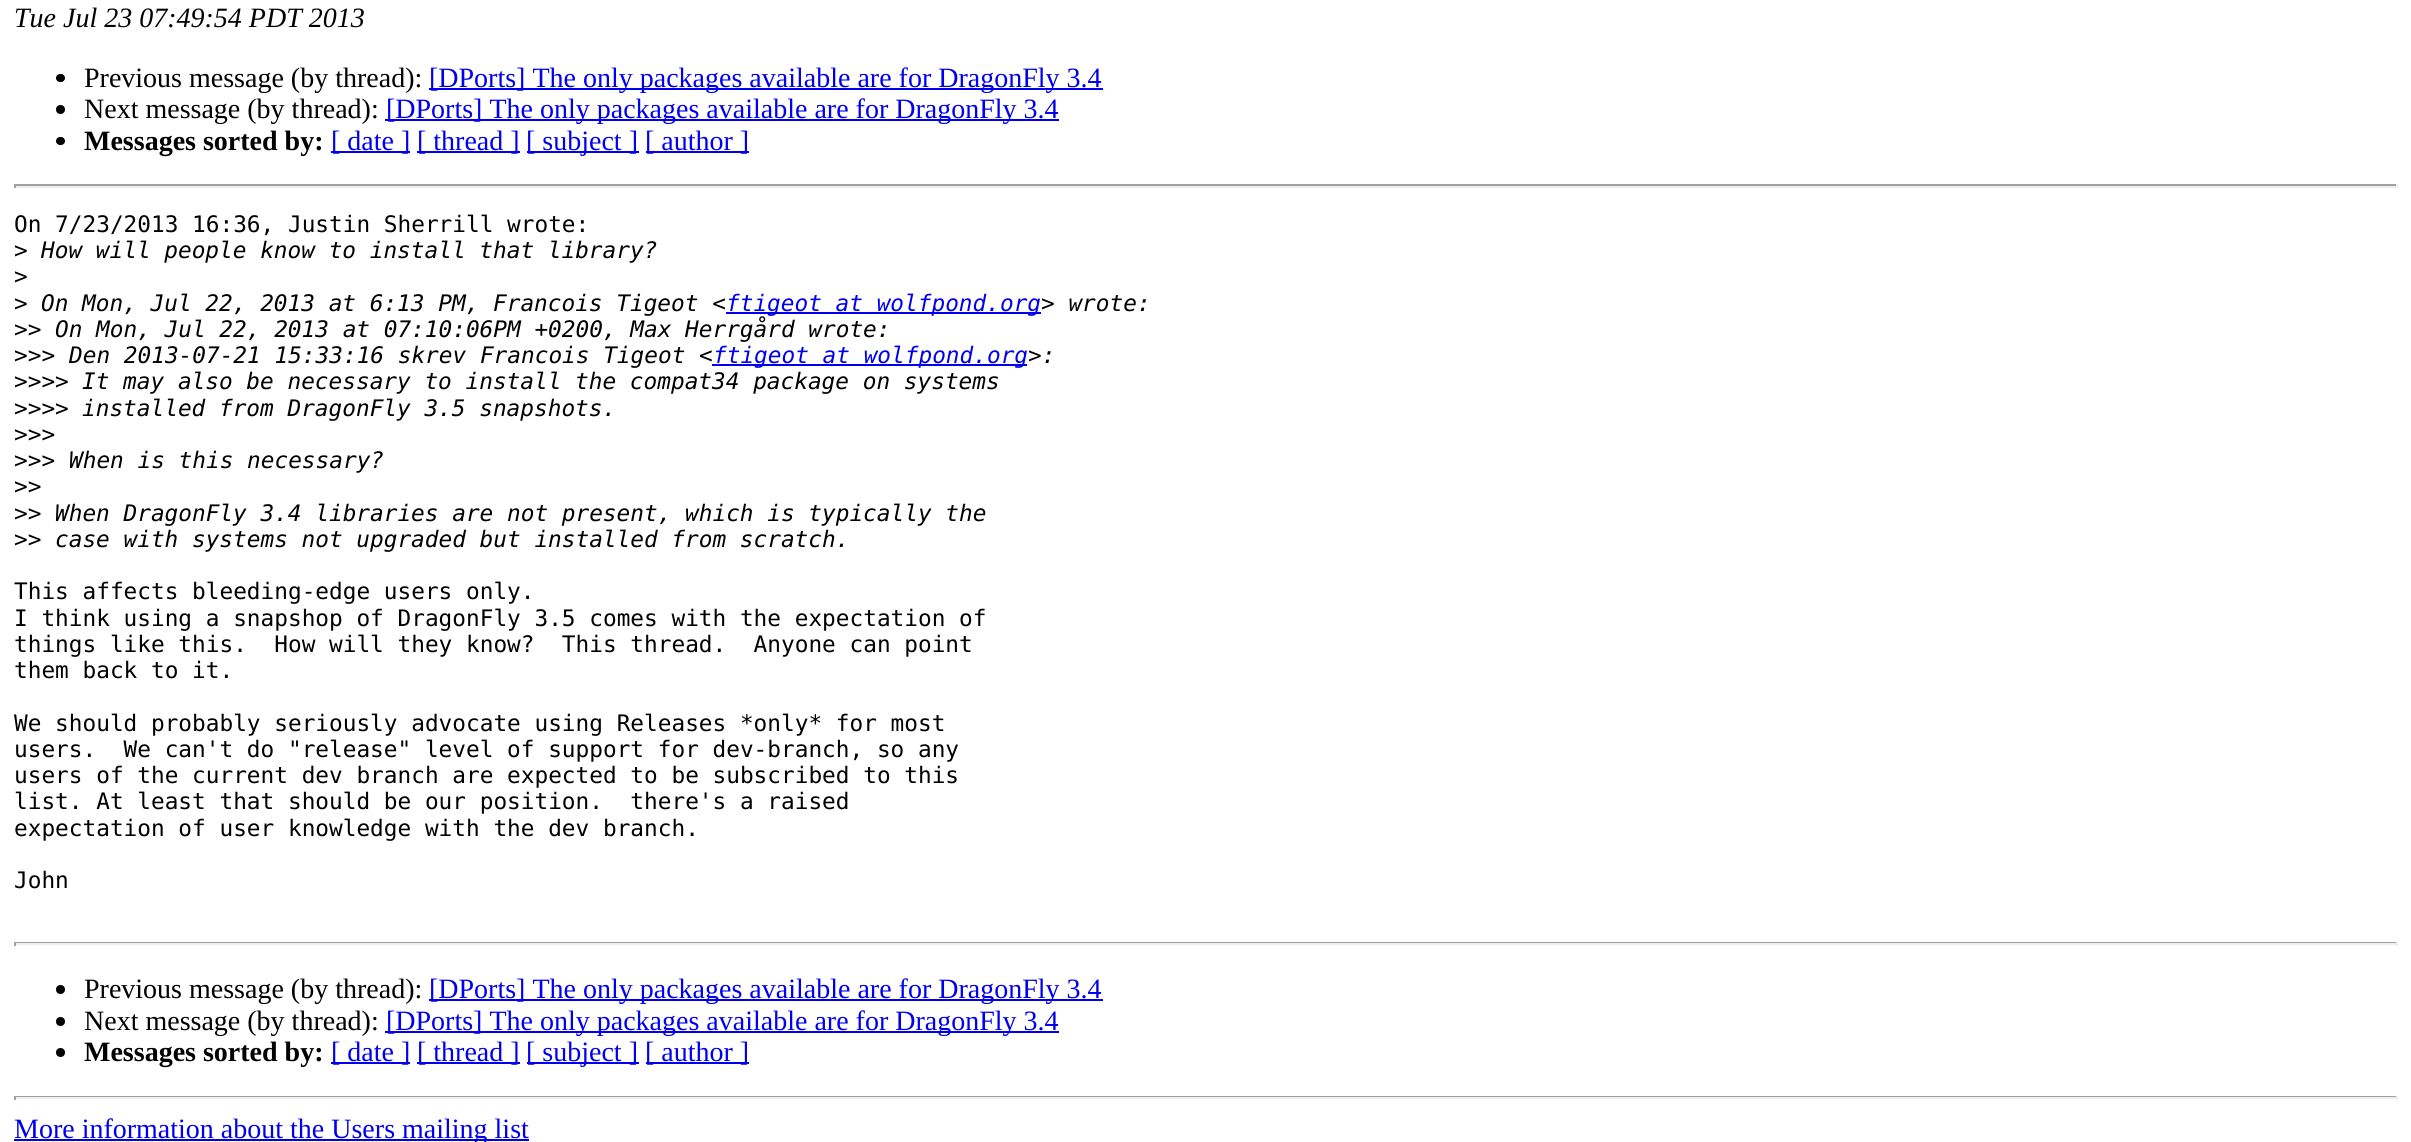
import math
import cairo


def use_color(cr, r, g, b):
  cr.set_source_rgb(r / 255, g / 255, b / 255)

def text(cr, x, y, s, family, size, color, bold=False, italic=False):
  cr.select_font_face(family, cairo.FONT_SLANT_ITALIC if italic else cairo.FONT_SLANT_NORMAL, cairo.FONT_WEIGHT_BOLD if bold else cairo.FONT_WEIGHT_NORMAL)
  cr.set_font_size(size)
  use_color(cr, *color)
  cr.move_to(x, y)
  cr.show_text(s)

def box(cr, x, y, w, h, *color):
  use_color(cr, *color)
  cr.rectangle(x, y, w, h)
  cr.fill()

def round_rect(cr, x, y, w, h, r):
  cr.new_sub_path()
  for i, (u, v) in enumerate([(x + w - r, y + h - r), (x + r, y + h - r), (x + r, y + r), (x + w - r, y + r)]):
    cr.arc(u, v, r, i * math.pi / 2, (i + 1) * math.pi / 2)
  cr.close_path()

def draw(cr):
  use_color(cr, 255, 255, 255)
  cr.paint()
  use_color(cr, 0, 0, 0)
  round_rect(cr, 56, 74, 9, 8, 4)
  cr.fill()
  box(cr, 429, 88, 674, 2, 0, 0, 238)
  use_color(cr, 0, 0, 0)
  cr.arc(60.5, 109.5, 4.5, 0, 2 * math.pi)
  cr.fill()
  box(cr, 385, 119, 674, 2, 0, 0, 238)
  use_color(cr, 0, 0, 0)
  round_rect(cr, 56, 137, 9, 8, 4)
  cr.fill()
  box(cr, 331, 151, 79, 2, 0, 0, 238)
  box(cr, 417, 151, 103, 2, 0, 0, 238)
  box(cr, 527, 151, 112, 2, 0, 0, 238)
  box(cr, 646, 151, 103, 2, 0, 0, 238)
  box(cr, 14, 184, 2384, 2, 159, 159, 159)
  box(cr, 2396, 184, 2, 4, 238, 238, 238)
  box(cr, 14, 186, 2384, 2, 238, 238, 238)
  box(cr, 14, 184, 2, 4, 159, 159, 159)
  box(cr, 726, 312, 315, 2, 0, 0, 238)
  box(cr, 712, 364, 315, 2, 0, 0, 238)
  box(cr, 14, 942, 2384, 1, 159, 159, 159)
  box(cr, 2396, 942, 2, 4, 238, 238, 238)
  box(cr, 14, 943, 2384, 2, 238, 238, 238)
  box(cr, 14, 942, 2, 4, 159, 159, 159)
  use_color(cr, 0, 0, 0)
  cr.arc(60.5, 989.5, 4.5, 0, 2 * math.pi)
  cr.fill()
  box(cr, 429, 999, 674, 2, 0, 0, 238)
  use_color(cr, 0, 0, 0)
  cr.arc(60.5, 1021.5, 4.5, 0, 2 * math.pi)
  cr.fill()
  box(cr, 385, 1031, 674, 2, 0, 0, 238)
  use_color(cr, 0, 0, 0)
  cr.arc(60.5, 1052.5, 4.5, 0, 2 * math.pi)
  cr.fill()
  box(cr, 331, 1062, 79, 2, 0, 0, 238)
  box(cr, 417, 1062, 103, 2, 0, 0, 238)
  box(cr, 527, 1062, 112, 2, 0, 0, 238)
  box(cr, 646, 1062, 103, 2, 0, 0, 238)
  box(cr, 14, 1096, 2384, 1, 159, 159, 159)
  box(cr, 2396, 1096, 2, 4, 238, 238, 238)
  box(cr, 14, 1097, 2384, 2, 238, 238, 238)
  box(cr, 14, 1096, 2, 4, 159, 159, 159)
  box(cr, 14, 1139, 515, 2, 0, 0, 238)
  text(cr, 14, 27, "Tue Jul 23 07:49:54 PDT 2013", "Liberation Serif", 28, (0, 0, 0), italic=True)
  text(cr, 84, 87, "Previous message (by thread):", "Liberation Serif", 28, (0, 0, 0))
  text(cr, 429, 87, "[DPorts] The only packages available are for DragonFly 3.4", "Liberation Serif", 28, (0, 0, 238))
  text(cr, 84, 118, "Next message (by thread):", "Liberation Serif", 28, (0, 0, 0))
  text(cr, 386, 118, "[DPorts] The only packages available are for DragonFly 3.4", "Liberation Serif", 28, (0, 0, 238))
  text(cr, 84, 150, "Messages sorted by:", "Liberation Serif", 28, (0, 0, 0), bold=True)
  text(cr, 331, 150, "[ date ]", "Liberation Serif", 28, (0, 0, 238))
  text(cr, 417, 150, "[ thread ]", "Liberation Serif", 28, (0, 0, 238))
  text(cr, 526, 150, "[ subject ]", "Liberation Serif", 28, (0, 0, 238))
  text(cr, 645, 150, "[ author ]", "Liberation Serif", 28, (0, 0, 238))
  text(cr, 14, 232, "On 7/23/2013 16:36, Justin Sherrill wrote:", "DejaVu Sans Mono", 22.75, (0, 0, 0))
  text(cr, 14, 258, ">", "DejaVu Sans Mono", 22.75, (0, 0, 0))
  text(cr, 41, 258, "How will people know to install that library?", "DejaVu Sans Mono", 22.75, (0, 0, 0), italic=True)
  text(cr, 14, 284, ">", "DejaVu Sans Mono", 22.75, (0, 0, 0))
  text(cr, 14, 311, ">", "DejaVu Sans Mono", 22.75, (0, 0, 0))
  text(cr, 41, 311, "On Mon, Jul 22, 2013 at 6:13 PM, Francois Tigeot <", "DejaVu Sans Mono", 22.75, (0, 0, 0), italic=True)
  text(cr, 726, 311, "ftigeot at wolfpond.org", "DejaVu Sans Mono", 22.75, (0, 0, 238), italic=True)
  text(cr, 1041, 311, "> wrote:", "DejaVu Sans Mono", 22.75, (0, 0, 0), italic=True)
  text(cr, 14, 337, ">>", "DejaVu Sans Mono", 22.75, (0, 0, 0))
  text(cr, 55, 337, "On Mon, Jul 22, 2013 at 07:10:06PM +0200, Max Herrgård wrote:", "DejaVu Sans Mono", 22.75, (0, 0, 0), italic=True)
  text(cr, 14, 363, ">>>", "DejaVu Sans Mono", 22.75, (0, 0, 0))
  text(cr, 69, 363, "Den 2013-07-21 15:33:16 skrev Francois Tigeot <", "DejaVu Sans Mono", 22.75, (0, 0, 0), italic=True)
  text(cr, 713, 363, "ftigeot at wolfpond.org", "DejaVu Sans Mono", 22.75, (0, 0, 238), italic=True)
  text(cr, 1028, 363, ">:", "DejaVu Sans Mono", 22.75, (0, 0, 0), italic=True)
  text(cr, 14, 389, ">>>>", "DejaVu Sans Mono", 22.75, (0, 0, 0))
  text(cr, 82, 389, "It may also be necessary to install the compat34 package on systems", "DejaVu Sans Mono", 22.75, (0, 0, 0), italic=True)
  text(cr, 14, 416, ">>>>", "DejaVu Sans Mono", 22.75, (0, 0, 0))
  text(cr, 82, 416, "installed from DragonFly 3.5 snapshots.", "DejaVu Sans Mono", 22.75, (0, 0, 0), italic=True)
  text(cr, 14, 442, ">>>", "DejaVu Sans Mono", 22.75, (0, 0, 0))
  text(cr, 14, 468, ">>>", "DejaVu Sans Mono", 22.75, (0, 0, 0))
  text(cr, 69, 468, "When is this necessary?", "DejaVu Sans Mono", 22.75, (0, 0, 0), italic=True)
  text(cr, 14, 494, ">>", "DejaVu Sans Mono", 22.75, (0, 0, 0))
  text(cr, 14, 521, ">>", "DejaVu Sans Mono", 22.75, (0, 0, 0))
  text(cr, 55, 521, "When DragonFly 3.4 libraries are not present, which is typically the", "DejaVu Sans Mono", 22.75, (0, 0, 0), italic=True)
  text(cr, 14, 547, ">>", "DejaVu Sans Mono", 22.75, (0, 0, 0))
  text(cr, 55, 547, "case with systems not upgraded but installed from scratch.", "DejaVu Sans Mono", 22.75, (0, 0, 0), italic=True)
  text(cr, 14, 599, "This affects bleeding-edge users only.", "DejaVu Sans Mono", 22.75, (0, 0, 0))
  text(cr, 14, 626, "I think using a snapshop of DragonFly 3.5 comes with the expectation of", "DejaVu Sans Mono", 22.75, (0, 0, 0))
  text(cr, 14, 652, "things like this.  How will they know?  This thread.  Anyone can point", "DejaVu Sans Mono", 22.75, (0, 0, 0))
  text(cr, 14, 678, "them back to it.", "DejaVu Sans Mono", 22.75, (0, 0, 0))
  text(cr, 14, 731, "We should probably seriously advocate using Releases *only* for most", "DejaVu Sans Mono", 22.75, (0, 0, 0))
  text(cr, 14, 757, "users.  We can't do \"release\" level of support for dev-branch, so any", "DejaVu Sans Mono", 22.75, (0, 0, 0))
  text(cr, 14, 783, "users of the current dev branch are expected to be subscribed to this", "DejaVu Sans Mono", 22.75, (0, 0, 0))
  text(cr, 14, 809, "list. At least that should be our position.  there's a raised", "DejaVu Sans Mono", 22.75, (0, 0, 0))
  text(cr, 14, 836, "expectation of user knowledge with the dev branch.", "DejaVu Sans Mono", 22.75, (0, 0, 0))
  text(cr, 14, 888, "John", "DejaVu Sans Mono", 22.75, (0, 0, 0))
  text(cr, 84, 998, "Previous message (by thread):", "Liberation Serif", 28, (0, 0, 0))
  text(cr, 429, 998, "[DPorts] The only packages available are for DragonFly 3.4", "Liberation Serif", 28, (0, 0, 238))
  text(cr, 84, 1030, "Next message (by thread):", "Liberation Serif", 28, (0, 0, 0))
  text(cr, 386, 1030, "[DPorts] The only packages available are for DragonFly 3.4", "Liberation Serif", 28, (0, 0, 238))
  text(cr, 84, 1061, "Messages sorted by:", "Liberation Serif", 28, (0, 0, 0), bold=True)
  text(cr, 331, 1061, "[ date ]", "Liberation Serif", 28, (0, 0, 238))
  text(cr, 417, 1061, "[ thread ]", "Liberation Serif", 28, (0, 0, 238))
  text(cr, 526, 1061, "[ subject ]", "Liberation Serif", 28, (0, 0, 238))
  text(cr, 645, 1061, "[ author ]", "Liberation Serif", 28, (0, 0, 238))
  text(cr, 14, 1138, "More information about the Users mailing list", "Liberation Serif", 28, (0, 0, 238))


surface = cairo.ImageSurface(cairo.FORMAT_RGB24, 2411, 1142)
cr = cairo.Context(surface)
options = cairo.FontOptions()
options.set_hint_metrics(cairo.HINT_METRICS_OFF)
options.set_hint_style(cairo.HINT_STYLE_NONE)
cr.set_font_options(options)
cr.set_miter_limit(4)
draw(cr)
surface.write_to_png("out.png")
